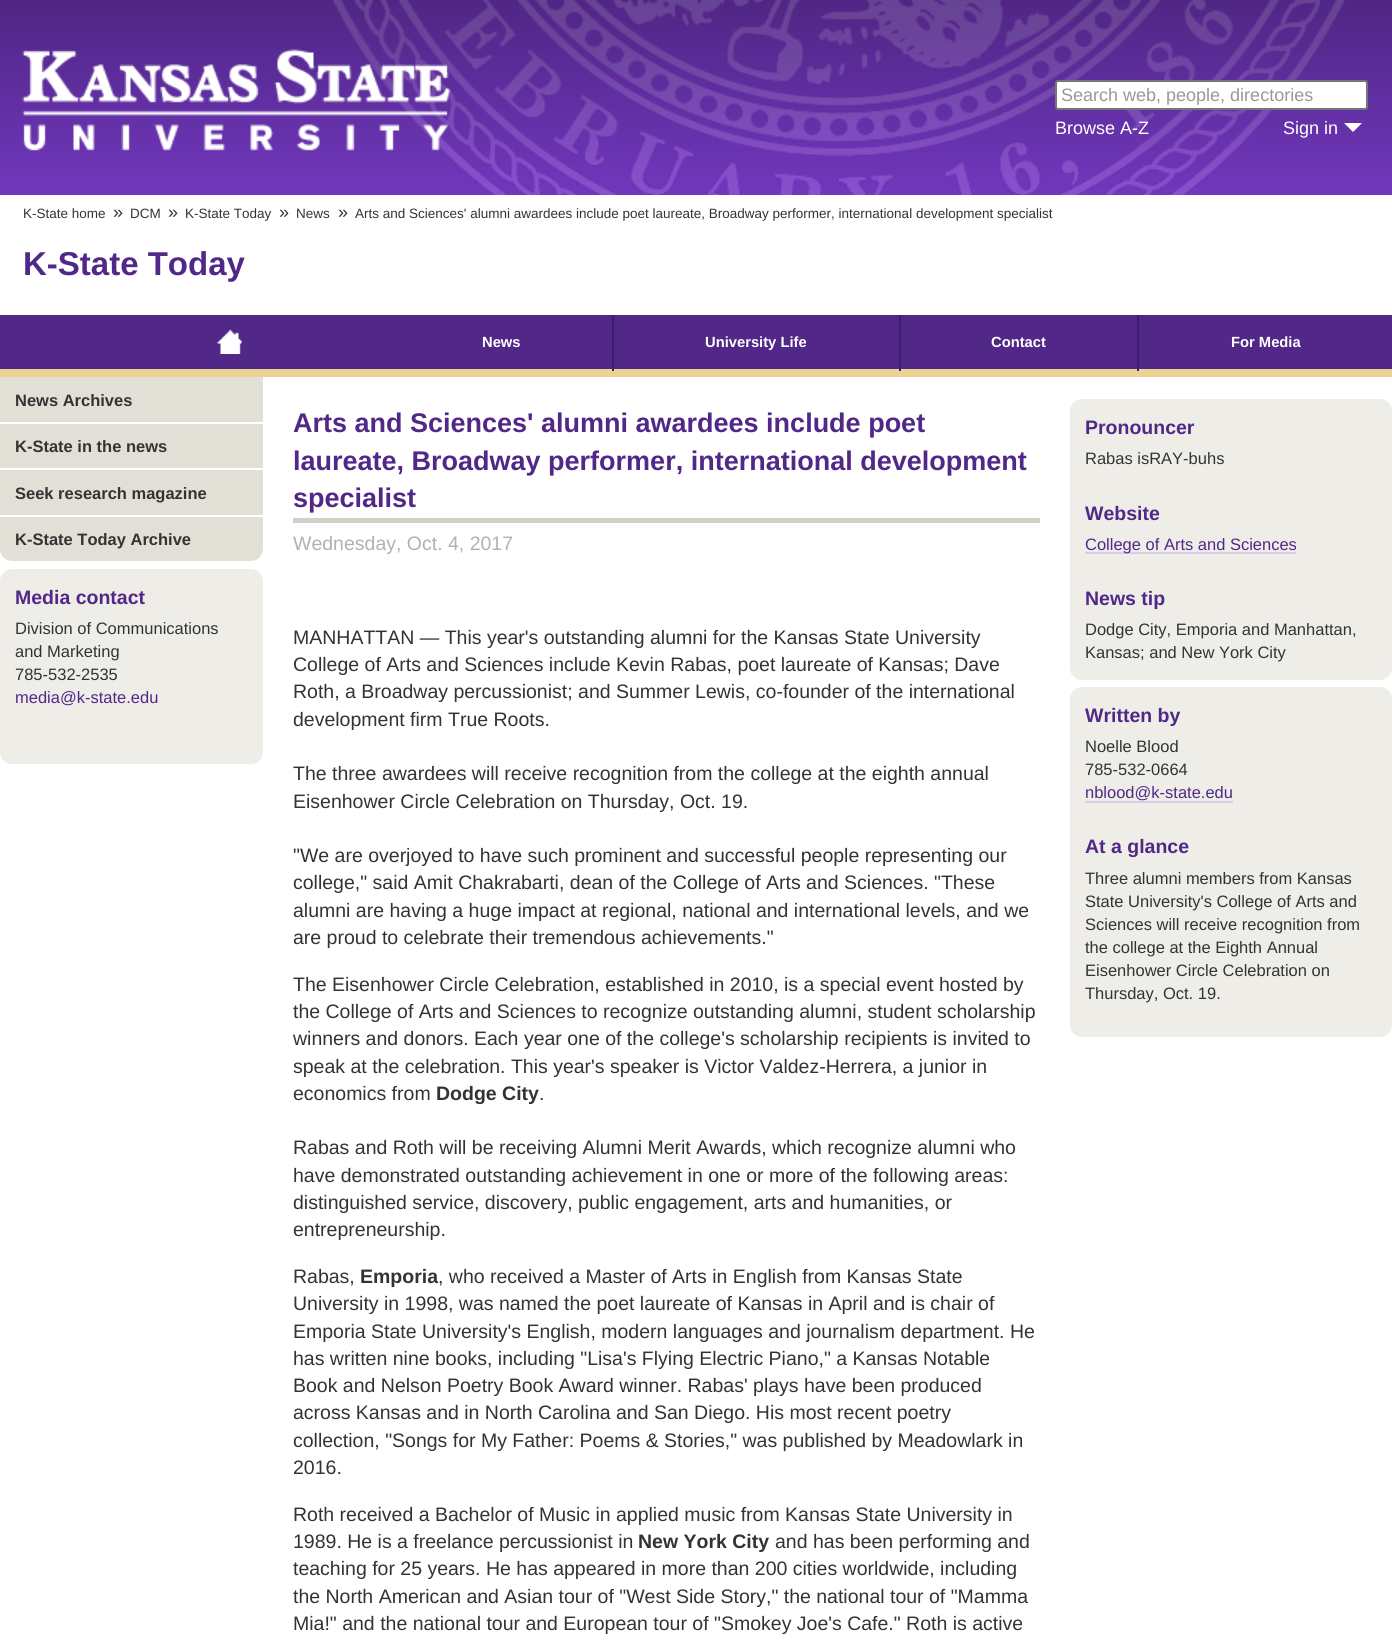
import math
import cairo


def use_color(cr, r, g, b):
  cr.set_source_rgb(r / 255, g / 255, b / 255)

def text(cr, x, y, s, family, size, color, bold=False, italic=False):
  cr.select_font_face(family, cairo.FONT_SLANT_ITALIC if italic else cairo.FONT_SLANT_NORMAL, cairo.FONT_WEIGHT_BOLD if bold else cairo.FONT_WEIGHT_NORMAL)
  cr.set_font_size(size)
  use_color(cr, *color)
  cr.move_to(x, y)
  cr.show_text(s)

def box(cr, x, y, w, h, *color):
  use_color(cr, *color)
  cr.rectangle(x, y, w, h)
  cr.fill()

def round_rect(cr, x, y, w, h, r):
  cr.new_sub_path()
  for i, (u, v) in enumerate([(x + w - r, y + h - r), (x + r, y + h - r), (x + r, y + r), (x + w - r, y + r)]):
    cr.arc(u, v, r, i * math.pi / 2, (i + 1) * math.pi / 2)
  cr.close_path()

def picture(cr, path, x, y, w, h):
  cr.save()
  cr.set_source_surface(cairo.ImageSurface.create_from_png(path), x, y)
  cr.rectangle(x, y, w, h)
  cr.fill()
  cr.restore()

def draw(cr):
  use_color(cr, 255, 255, 255)
  cr.paint()
  gradient = cairo.LinearGradient(696, 0, 696, 195)
  gradient.add_color_stop_rgba(0, 0.31, 0.149, 0.518, 1)
  gradient.add_color_stop_rgba(1, 0.443, 0.216, 0.741, 1)
  cr.set_source(gradient)
  cr.rectangle(0, 0, 1392, 195)
  cr.fill()
  picture(cr, "img_01.png", 333, 0, 1012, 195)
  picture(cr, "img_02.png", 22, 49, 429, 102)
  use_color(cr, 255, 255, 255)
  round_rect(cr, 1056, 81, 311, 28, 2)
  cr.fill_preserve()
  use_color(cr, 118, 118, 118)
  cr.stroke()
  use_color(cr, 255, 255, 255)
  cr.new_path()
  cr.move_to(1344, 123)
  cr.line_to(1362, 123)
  cr.line_to(1353, 132)
  cr.close_path()
  cr.fill()
  box(cr, 0, 369, 1392, 8, 236, 211, 145)
  box(cr, 0, 315, 1392, 54, 81, 40, 136)
  picture(cr, "img_03.png", 217, 330, 25, 24)
  box(cr, 612, 315, 2, 56, 65, 25, 119)
  box(cr, 899, 315, 2, 56, 65, 25, 119)
  box(cr, 1137, 315, 2, 56, 65, 25, 119)
  use_color(cr, 226, 224, 214)
  cr.new_path()
  cr.move_to(0, 377)
  cr.line_to(263, 377)
  cr.line_to(263, 549)
  cr.curve_to(263, 555.5, 257.5, 561, 251, 561)
  cr.line_to(12, 561)
  cr.curve_to(5.5, 561, 0, 555.5, 0, 549)
  cr.close_path()
  cr.fill()
  box(cr, 0, 422, 263, 2, 255, 255, 255)
  box(cr, 0, 468, 263, 2, 255, 255, 255)
  box(cr, 0, 515, 263, 2, 255, 255, 255)
  use_color(cr, 238, 237, 232)
  round_rect(cr, 0, 569, 263, 195, 12)
  cr.fill()
  box(cr, 293, 518, 747, 5, 209, 209, 201)
  use_color(cr, 238, 237, 232)
  round_rect(cr, 1070, 399, 322, 281, 12)
  cr.fill()
  box(cr, 1085, 552, 211, 2, 221, 201, 232)
  use_color(cr, 238, 237, 232)
  round_rect(cr, 1070, 687, 322, 350, 12)
  cr.fill()
  box(cr, 1085, 801, 148, 2, 221, 201, 232)
  text(cr, 1061, 101, "Search web, people, directories", "Liberation Sans", 18, (153, 153, 153))
  text(cr, 1055, 134, "Browse A-Z", "Liberation Sans", 18, (255, 255, 255))
  text(cr, 1283, 134, "Sign in", "Liberation Sans", 18, (255, 255, 255))
  text(cr, 23, 218, "K-State home", "Liberation Sans", 13.5, (51, 51, 51))
  text(cr, 113, 218, "»", "Liberation Sans", 18, (51, 51, 51))
  text(cr, 130, 218, "DCM", "Liberation Sans", 13.5, (51, 51, 51))
  text(cr, 168, 218, "»", "Liberation Sans", 18, (51, 51, 51))
  text(cr, 185, 218, "K-State Today", "Liberation Sans", 13.5, (51, 51, 51))
  text(cr, 279, 218, "»", "Liberation Sans", 18, (51, 51, 51))
  text(cr, 296, 218, "News", "Liberation Sans", 13.5, (51, 51, 51))
  text(cr, 338, 218, "»", "Liberation Sans", 18, (51, 51, 51))
  text(cr, 355, 218, "Arts and Sciences' alumni awardees include poet laureate, Broadway performer, international development specialist", "Liberation Sans", 13.5, (51, 51, 51))
  text(cr, 23, 275, "K-State Today", "Liberation Sans", 33, (81, 40, 136), bold=True)
  text(cr, 482, 347, "News", "Liberation Sans", 14.75, (255, 255, 255), bold=True)
  text(cr, 705, 347, "University Life", "Liberation Sans", 14.75, (255, 255, 255), bold=True)
  text(cr, 991, 347, "Contact", "Liberation Sans", 14.75, (255, 255, 255), bold=True)
  text(cr, 1231, 347, "For Media", "Liberation Sans", 14.75, (255, 255, 255), bold=True)
  text(cr, 15, 406, "News Archives", "Liberation Sans", 16.5, (51, 51, 51), bold=True)
  text(cr, 15, 452, "K-State in the news", "Liberation Sans", 16.5, (51, 51, 51), bold=True)
  text(cr, 15, 499, "Seek research magazine", "Liberation Sans", 16.5, (51, 51, 51), bold=True)
  text(cr, 15, 545, "K-State Today Archive", "Liberation Sans", 16.5, (51, 51, 51), bold=True)
  text(cr, 15, 604, "Media contact", "Liberation Sans", 19.5, (81, 40, 136), bold=True)
  text(cr, 15, 634, "Division of Communications", "Liberation Sans", 16.5, (51, 51, 51))
  text(cr, 15, 657, "and Marketing", "Liberation Sans", 16.5, (51, 51, 51))
  text(cr, 15, 680, "785-532-2535", "Liberation Sans", 16.5, (51, 51, 51))
  text(cr, 15, 703, "media@k-state.edu", "Liberation Sans", 16.5, (81, 40, 136))
  text(cr, 293, 432, "Arts and Sciences' alumni awardees include poet", "Liberation Sans", 27, (81, 40, 136), bold=True)
  text(cr, 293, 470, "laureate, Broadway performer, international development", "Liberation Sans", 27, (81, 40, 136), bold=True)
  text(cr, 293, 507, "specialist", "Liberation Sans", 27, (81, 40, 136), bold=True)
  text(cr, 293, 550, "Wednesday, Oct. 4, 2017", "Liberation Sans", 19.5, (177, 177, 177))
  text(cr, 293, 644, "MANHATTAN — This year's outstanding alumni for the Kansas State University", "Liberation Sans", 19.5, (51, 51, 51))
  text(cr, 293, 671, "College of Arts and Sciences include Kevin Rabas, poet laureate of Kansas; Dave", "Liberation Sans", 19.5, (51, 51, 51))
  text(cr, 293, 698, "Roth, a Broadway percussionist; and Summer Lewis, co-founder of the international", "Liberation Sans", 19.5, (51, 51, 51))
  text(cr, 293, 726, "development firm True Roots.", "Liberation Sans", 19.5, (51, 51, 51))
  text(cr, 293, 780, "The three awardees will receive recognition from the college at the eighth annual", "Liberation Sans", 19.5, (51, 51, 51))
  text(cr, 293, 808, "Eisenhower Circle Celebration on Thursday, Oct. 19.", "Liberation Sans", 19.5, (51, 51, 51))
  text(cr, 293, 862, "\"We are overjoyed to have such prominent and successful people representing our", "Liberation Sans", 19.5, (51, 51, 51))
  text(cr, 293, 889, "college,\" said Amit Chakrabarti, dean of the College of Arts and Sciences. \"These", "Liberation Sans", 19.5, (51, 51, 51))
  text(cr, 293, 917, "alumni are having a huge impact at regional, national and international levels, and we", "Liberation Sans", 19.5, (51, 51, 51))
  text(cr, 293, 944, "are proud to celebrate their tremendous achievements.\"", "Liberation Sans", 19.5, (51, 51, 51))
  text(cr, 293, 991, "The Eisenhower Circle Celebration, established in 2010, is a special event hosted by", "Liberation Sans", 19.5, (51, 51, 51))
  text(cr, 293, 1018, "the College of Arts and Sciences to recognize outstanding alumni, student scholarship", "Liberation Sans", 19.5, (51, 51, 51))
  text(cr, 293, 1045, "winners and donors. Each year one of the college's scholarship recipients is invited to", "Liberation Sans", 19.5, (51, 51, 51))
  text(cr, 293, 1073, "speak at the celebration. This year's speaker is Victor Valdez-Herrera, a junior in", "Liberation Sans", 19.5, (51, 51, 51))
  text(cr, 293, 1100, "economics from", "Liberation Sans", 19.5, (51, 51, 51))
  text(cr, 436, 1100, "Dodge City", "Liberation Sans", 19.5, (51, 51, 51), bold=True)
  text(cr, 539, 1100, ".", "Liberation Sans", 19.5, (51, 51, 51))
  text(cr, 293, 1154, "Rabas and Roth will be receiving Alumni Merit Awards, which recognize alumni who", "Liberation Sans", 19.5, (51, 51, 51))
  text(cr, 293, 1182, "have demonstrated outstanding achievement in one or more of the following areas:", "Liberation Sans", 19.5, (51, 51, 51))
  text(cr, 293, 1209, "distinguished service, discovery, public engagement, arts and humanities, or", "Liberation Sans", 19.5, (51, 51, 51))
  text(cr, 293, 1236, "entrepreneurship.", "Liberation Sans", 19.5, (51, 51, 51))
  text(cr, 293, 1283, "Rabas,", "Liberation Sans", 19.5, (51, 51, 51))
  text(cr, 360, 1283, "Emporia", "Liberation Sans", 19.5, (51, 51, 51), bold=True)
  text(cr, 438, 1283, ", who received a Master of Arts in English from Kansas State", "Liberation Sans", 19.5, (51, 51, 51))
  text(cr, 293, 1310, "University in 1998, was named the poet laureate of Kansas in April and is chair of", "Liberation Sans", 19.5, (51, 51, 51))
  text(cr, 293, 1338, "Emporia State University's English, modern languages and journalism department. He", "Liberation Sans", 19.5, (51, 51, 51))
  text(cr, 293, 1365, "has written nine books, including \"Lisa's Flying Electric Piano,\" a Kansas Notable", "Liberation Sans", 19.5, (51, 51, 51))
  text(cr, 293, 1392, "Book and Nelson Poetry Book Award winner. Rabas' plays have been produced", "Liberation Sans", 19.5, (51, 51, 51))
  text(cr, 293, 1419, "across Kansas and in North Carolina and San Diego. His most recent poetry", "Liberation Sans", 19.5, (51, 51, 51))
  text(cr, 293, 1447, "collection, \"Songs for My Father: Poems & Stories,\" was published by Meadowlark in", "Liberation Sans", 19.5, (51, 51, 51))
  text(cr, 293, 1474, "2016.", "Liberation Sans", 19.5, (51, 51, 51))
  text(cr, 293, 1521, "Roth received a Bachelor of Music in applied music from Kansas State University in", "Liberation Sans", 19.5, (51, 51, 51))
  text(cr, 293, 1548, "1989. He is a freelance percussionist in", "Liberation Sans", 19.5, (51, 51, 51))
  text(cr, 638, 1548, "New York City", "Liberation Sans", 19.5, (51, 51, 51), bold=True)
  text(cr, 775, 1548, "and has been performing and", "Liberation Sans", 19.5, (51, 51, 51))
  text(cr, 293, 1575, "teaching for 25 years. He has appeared in more than 200 cities worldwide, including", "Liberation Sans", 19.5, (51, 51, 51))
  text(cr, 293, 1603, "the North American and Asian tour of \"West Side Story,\" the national tour of \"Mamma", "Liberation Sans", 19.5, (51, 51, 51))
  text(cr, 293, 1630, "Mia!\" and the national tour and European tour of \"Smokey Joe's Cafe.\" Roth is active", "Liberation Sans", 19.5, (51, 51, 51))
  text(cr, 1085, 434, "Pronouncer", "Liberation Sans", 19.5, (81, 40, 136), bold=True)
  text(cr, 1085, 464, "Rabas isRAY-buhs", "Liberation Sans", 16.5, (51, 51, 51))
  text(cr, 1085, 520, "Website", "Liberation Sans", 19.5, (81, 40, 136), bold=True)
  text(cr, 1085, 550, "College of Arts and Sciences", "Liberation Sans", 16.5, (81, 40, 136))
  text(cr, 1085, 605, "News tip", "Liberation Sans", 19.5, (81, 40, 136), bold=True)
  text(cr, 1085, 635, "Dodge City, Emporia and Manhattan,", "Liberation Sans", 16.5, (51, 51, 51))
  text(cr, 1085, 658, "Kansas; and New York City", "Liberation Sans", 16.5, (51, 51, 51))
  text(cr, 1085, 722, "Written by", "Liberation Sans", 19.5, (81, 40, 136), bold=True)
  text(cr, 1085, 752, "Noelle Blood", "Liberation Sans", 16.5, (51, 51, 51))
  text(cr, 1085, 775, "785-532-0664", "Liberation Sans", 16.5, (51, 51, 51))
  text(cr, 1085, 798, "nblood@k-state.edu", "Liberation Sans", 16.5, (81, 40, 136))
  text(cr, 1085, 853, "At a glance", "Liberation Sans", 19.5, (81, 40, 136), bold=True)
  text(cr, 1085, 884, "Three alumni members from Kansas", "Liberation Sans", 16.5, (51, 51, 51))
  text(cr, 1085, 907, "State University's College of Arts and", "Liberation Sans", 16.5, (51, 51, 51))
  text(cr, 1085, 930, "Sciences will receive recognition from", "Liberation Sans", 16.5, (51, 51, 51))
  text(cr, 1085, 953, "the college at the Eighth Annual", "Liberation Sans", 16.5, (51, 51, 51))
  text(cr, 1085, 976, "Eisenhower Circle Celebration on", "Liberation Sans", 16.5, (51, 51, 51))
  text(cr, 1085, 999, "Thursday, Oct. 19.", "Liberation Sans", 16.5, (51, 51, 51))


surface = cairo.ImageSurface(cairo.FORMAT_RGB24, 1392, 1648)
cr = cairo.Context(surface)
options = cairo.FontOptions()
options.set_hint_metrics(cairo.HINT_METRICS_OFF)
options.set_hint_style(cairo.HINT_STYLE_NONE)
cr.set_font_options(options)
cr.set_miter_limit(4)
draw(cr)
surface.write_to_png("out.png")
